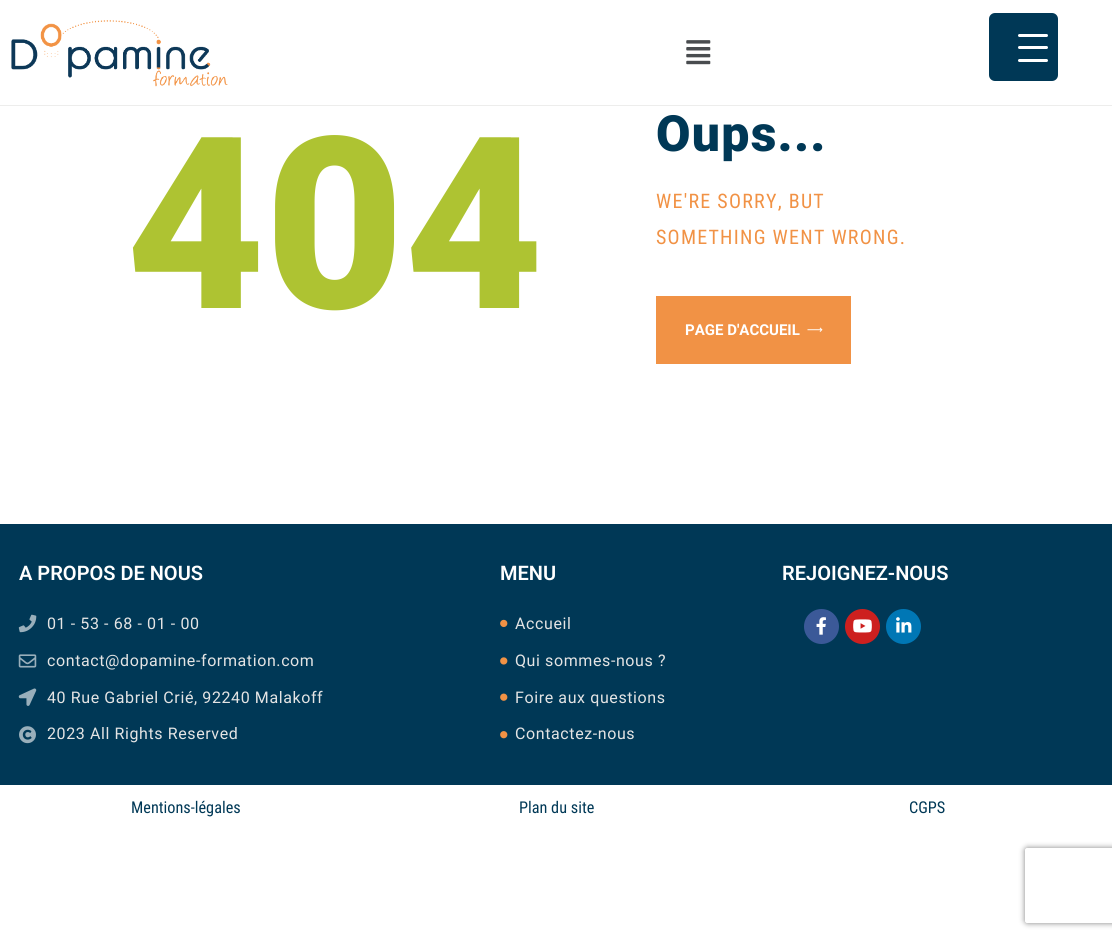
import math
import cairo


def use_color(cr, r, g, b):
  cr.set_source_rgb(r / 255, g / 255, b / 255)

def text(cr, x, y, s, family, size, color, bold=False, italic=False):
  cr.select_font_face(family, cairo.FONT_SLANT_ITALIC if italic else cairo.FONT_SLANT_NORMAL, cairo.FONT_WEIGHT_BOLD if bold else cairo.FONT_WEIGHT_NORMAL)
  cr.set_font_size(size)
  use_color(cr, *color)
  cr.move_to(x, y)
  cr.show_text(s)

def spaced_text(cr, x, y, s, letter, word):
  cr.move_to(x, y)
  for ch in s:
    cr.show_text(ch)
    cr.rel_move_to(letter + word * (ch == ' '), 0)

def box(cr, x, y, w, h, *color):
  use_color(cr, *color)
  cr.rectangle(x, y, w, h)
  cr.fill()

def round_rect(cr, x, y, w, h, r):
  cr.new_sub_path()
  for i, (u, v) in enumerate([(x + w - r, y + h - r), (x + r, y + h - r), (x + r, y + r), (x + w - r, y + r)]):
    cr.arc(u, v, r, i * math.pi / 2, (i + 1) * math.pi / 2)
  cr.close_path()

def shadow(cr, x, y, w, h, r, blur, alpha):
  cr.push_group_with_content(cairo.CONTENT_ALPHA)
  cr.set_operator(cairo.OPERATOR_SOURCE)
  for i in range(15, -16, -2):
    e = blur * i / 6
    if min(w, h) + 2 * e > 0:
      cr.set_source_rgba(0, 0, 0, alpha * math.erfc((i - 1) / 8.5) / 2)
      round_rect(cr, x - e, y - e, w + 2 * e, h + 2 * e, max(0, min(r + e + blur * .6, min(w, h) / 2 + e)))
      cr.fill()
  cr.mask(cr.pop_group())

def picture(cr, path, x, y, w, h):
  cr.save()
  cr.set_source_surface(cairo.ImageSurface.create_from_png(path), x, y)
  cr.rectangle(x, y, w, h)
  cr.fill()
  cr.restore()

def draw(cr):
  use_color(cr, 255, 255, 255)
  cr.paint()
  use_color(cr, 0, 56, 86)
  round_rect(cr, 989, 13, 69, 68, 6)
  cr.fill()
  use_color(cr, 255, 255, 255)
  round_rect(cr, 1018, 46, 30, 3, 1.5)
  cr.fill()
  round_rect(cr, 1018, 34, 30, 3, 1.5)
  cr.fill()
  round_rect(cr, 1018, 59, 30, 3, 1.5)
  cr.fill()
  box(cr, 0, 105, 1112, 1, 237, 237, 236)
  picture(cr, "img_01.png", 11, 20, 217, 67)
  picture(cr, "img_02.png", 686, 40, 25, 25)
  box(cr, 656, 296, 195, 68, 241, 146, 69)
  picture(cr, "img_03.png", 807, 327, 16, 5)
  box(cr, 0, 524, 1112, 261, 0, 56, 86)
  picture(cr, "img_04.png", 18, 614, 19, 19)
  picture(cr, "img_05.png", 18, 654, 19, 14)
  picture(cr, "img_06.png", 18, 688, 19, 18)
  picture(cr, "img_07.png", 19, 726, 17, 18)
  picture(cr, "img_08.png", 500, 619, 8, 9)
  picture(cr, "img_09.png", 500, 657, 8, 8)
  picture(cr, "img_10.png", 500, 693, 8, 8)
  picture(cr, "img_11.png", 500, 731, 8, 8)
  use_color(cr, 59, 89, 152)
  cr.arc(821.5, 626.5, 17.5, 0, 2 * math.pi)
  cr.fill()
  picture(cr, "img_12.png", 816, 617, 10, 18)
  use_color(cr, 205, 32, 31)
  cr.arc(862.5, 626.5, 17.5, 0, 2 * math.pi)
  cr.fill()
  picture(cr, "img_13.png", 853, 619, 19, 14)
  use_color(cr, 0, 119, 181)
  cr.arc(903.5, 626.5, 17.5, 0, 2 * math.pi)
  cr.fill()
  picture(cr, "img_14.png", 896, 617, 16, 16)
  cr.save()
  cr.set_fill_rule(cairo.FILL_RULE_EVEN_ODD)
  cr.new_path()
  cr.move_to(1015, 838)
  cr.line_to(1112, 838)
  cr.line_to(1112, 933)
  cr.line_to(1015, 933)
  cr.close_path()
  cr.move_to(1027.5, 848)
  cr.line_to(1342.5, 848)
  cr.curve_to(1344, 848, 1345, 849, 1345, 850.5)
  cr.line_to(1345, 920.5)
  cr.curve_to(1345, 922, 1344, 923, 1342.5, 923)
  cr.line_to(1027.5, 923)
  cr.curve_to(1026, 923, 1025, 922, 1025, 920.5)
  cr.line_to(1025, 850.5)
  cr.curve_to(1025, 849, 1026, 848, 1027.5, 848)
  cr.close_path()
  cr.clip()
  use_color(cr, 128, 128, 128)
  shadow(cr, 1025, 848, 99, 75, 2.5, 3, 1)
  cr.restore()
  text(cr, 126, 308, "404", "Roboto Black", 240, (174, 195, 50))
  cr.set_font_size(50)
  use_color(cr, 0, 56, 86)
  spaced_text(cr, 656, 151, "Oups...", 1.25, 0)
  cr.select_font_face("Roboto Condensed")
  cr.set_font_size(20)
  use_color(cr, 241, 146, 69)
  spaced_text(cr, 656, 208, "WE'RE SORRY, BUT", 1.25, 0)
  spaced_text(cr, 656, 244, "SOMETHING WENT WRONG.", 1.25, 0)
  text(cr, 685, 335, "PAGE D'ACCUEIL", "Roboto", 15, (255, 255, 255), bold=True)
  text(cr, 19, 580, "A PROPOS DE NOUS", "Roboto SemiBold", 20, (255, 255, 255))
  cr.select_font_face("Roboto")
  cr.set_font_size(16)
  use_color(cr, 228, 228, 228)
  spaced_text(cr, 47, 629, "01 - 53 - 68 - 01 - 00", 0.6, 0)
  spaced_text(cr, 47, 666, "contact@dopamine-formation.com", 0.6, 0)
  spaced_text(cr, 47, 703, "40 Rue Gabriel Crié, 92240 Malakoff", 0.6, 0)
  spaced_text(cr, 47, 739, "2023 All Rights Reserved", 0.6, 0)
  text(cr, 500, 580, "MENU", "Roboto SemiBold", 20, (255, 255, 255))
  cr.select_font_face("Roboto")
  cr.set_font_size(16)
  use_color(cr, 228, 228, 228)
  spaced_text(cr, 515, 629, "Accueil", 0.6, 0)
  spaced_text(cr, 515, 666, "Qui sommes-nous ?", 0.6, 0)
  spaced_text(cr, 515, 703, "Foire aux questions", 0.6, 0)
  spaced_text(cr, 515, 739, "Contactez-nous", 0.6, 0)
  text(cr, 782, 580, "REJOIGNEZ-NOUS", "Roboto SemiBold", 20, (255, 255, 255))
  text(cr, 131, 813, "Mentions-légales", "Roboto Condensed", 16.25, (0, 56, 86))
  text(cr, 519, 813, "Plan du site", "Roboto Condensed", 16.25, (0, 56, 86))
  text(cr, 909, 813, "CGPS", "Roboto Condensed", 16.25, (0, 56, 86))


surface = cairo.ImageSurface(cairo.FORMAT_RGB24, 1112, 940)
cr = cairo.Context(surface)
options = cairo.FontOptions()
options.set_hint_metrics(cairo.HINT_METRICS_OFF)
options.set_hint_style(cairo.HINT_STYLE_NONE)
cr.set_font_options(options)
cr.set_miter_limit(4)
draw(cr)
surface.write_to_png("out.png")
